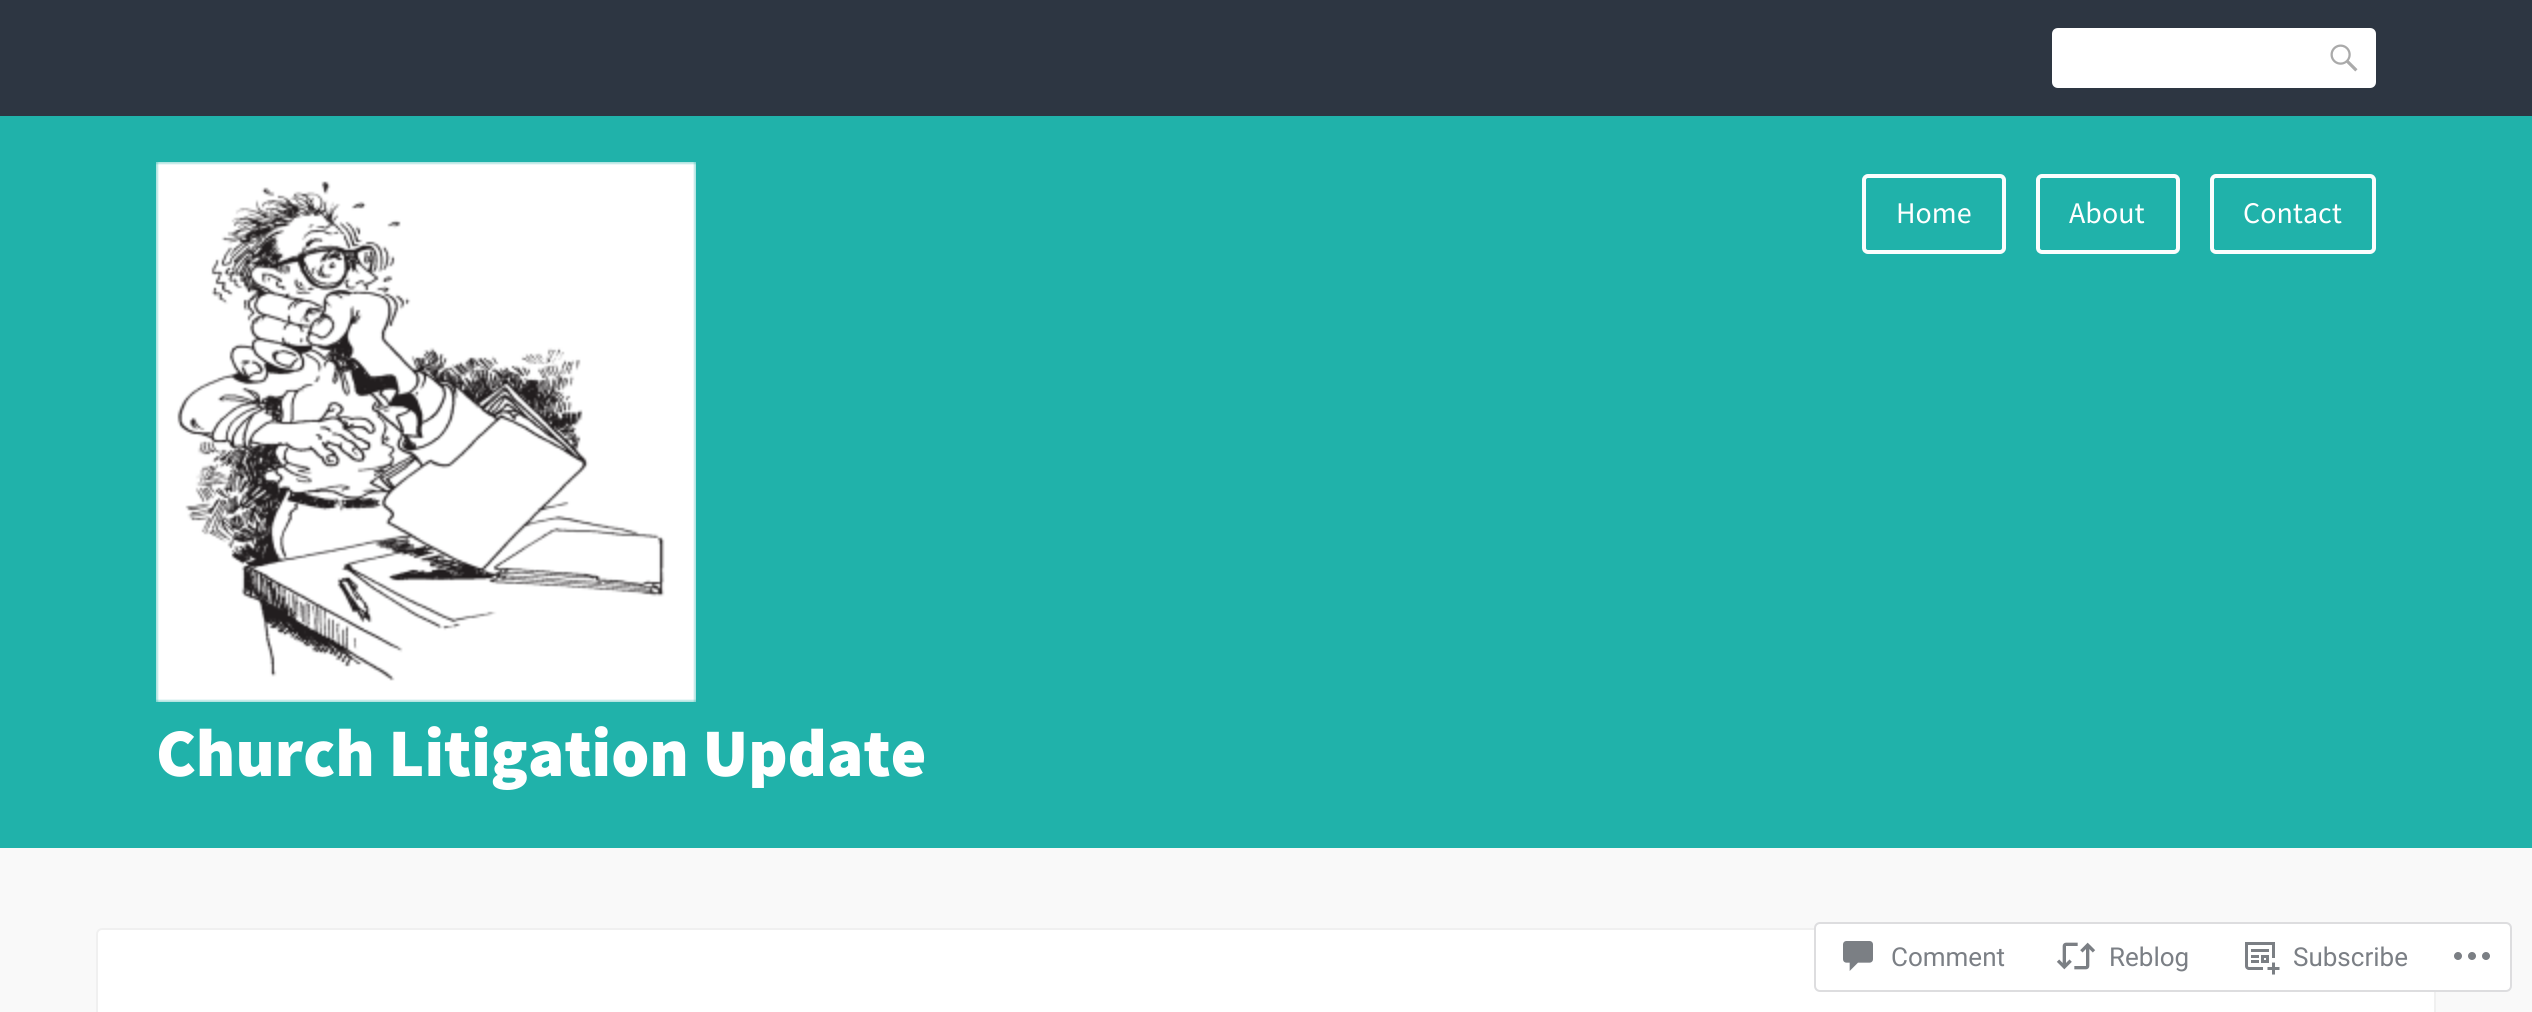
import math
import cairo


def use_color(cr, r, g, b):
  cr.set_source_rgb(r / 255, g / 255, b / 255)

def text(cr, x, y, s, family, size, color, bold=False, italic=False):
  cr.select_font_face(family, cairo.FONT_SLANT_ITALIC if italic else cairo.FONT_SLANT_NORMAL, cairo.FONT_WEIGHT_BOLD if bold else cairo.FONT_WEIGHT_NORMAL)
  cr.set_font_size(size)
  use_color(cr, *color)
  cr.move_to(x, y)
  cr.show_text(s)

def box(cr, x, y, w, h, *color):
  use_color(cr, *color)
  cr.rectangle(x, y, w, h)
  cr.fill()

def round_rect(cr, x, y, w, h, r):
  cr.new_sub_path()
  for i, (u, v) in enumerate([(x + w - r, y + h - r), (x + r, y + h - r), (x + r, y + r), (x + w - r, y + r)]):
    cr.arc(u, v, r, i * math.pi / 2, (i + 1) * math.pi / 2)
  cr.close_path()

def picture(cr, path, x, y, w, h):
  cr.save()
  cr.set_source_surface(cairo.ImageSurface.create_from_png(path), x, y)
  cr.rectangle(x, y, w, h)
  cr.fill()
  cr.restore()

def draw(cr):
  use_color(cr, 249, 249, 249)
  cr.paint()
  box(cr, 0, 0, 2532, 116, 45, 54, 66)
  use_color(cr, 255, 255, 255)
  cr.new_path()
  cr.move_to(2058, 28)
  cr.line_to(2312, 28)
  cr.line_to(2312, 88)
  cr.line_to(2058, 88)
  cr.curve_to(2054.5, 88, 2052, 85.5, 2052, 82)
  cr.line_to(2052, 34)
  cr.curve_to(2052, 30.5, 2054.5, 28, 2058, 28)
  cr.close_path()
  cr.fill()
  cr.new_path()
  cr.move_to(2312, 28)
  cr.line_to(2370, 28)
  cr.curve_to(2373.5, 28, 2376, 30.5, 2376, 34)
  cr.line_to(2376, 82)
  cr.curve_to(2376, 85.5, 2373.5, 88, 2370, 88)
  cr.line_to(2312, 88)
  cr.close_path()
  cr.fill()
  picture(cr, "img_01.png", 2330, 44, 28, 28)
  box(cr, 0, 116, 2532, 732, 32, 178, 170)
  round_rect(cr, 1864, 176, 140, 76, 4)
  use_color(cr, 251, 253, 253)
  cr.set_line_width(4)
  cr.stroke()
  round_rect(cr, 2038, 176, 140, 76, 4)
  cr.stroke()
  round_rect(cr, 2212, 176, 162, 76, 4)
  cr.stroke()
  picture(cr, "img_02.png", 156, 162, 540, 540)
  use_color(cr, 255, 255, 255)
  round_rect(cr, 97, 929, 2338, 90, 5)
  cr.fill_preserve()
  use_color(cr, 240, 240, 240)
  cr.set_line_width(2)
  cr.stroke()
  cr.set_source_rgba(1, 1, 1, 0.98)
  round_rect(cr, 1815, 923, 696, 68, 5)
  cr.fill_preserve()
  use_color(cr, 221, 221, 223)
  cr.stroke()
  picture(cr, "img_03.png", 1843, 941, 30, 30)
  picture(cr, "img_04.png", 2056, 942, 40, 28)
  picture(cr, "img_05.png", 2245, 942, 35, 33)
  picture(cr, "img_06.png", 2454, 952, 36, 8)
  text(cr, 1896, 223, "Home", "Source Sans Pro", 30, (255, 255, 255))
  text(cr, 2069, 223, "About", "Source Sans Pro", 30, (255, 255, 255))
  text(cr, 2243, 223, "Contact", "Source Sans Pro", 30, (255, 255, 255))
  text(cr, 156, 776, "Church Litigation Update", "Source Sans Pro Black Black", 68, (255, 255, 255))
  text(cr, 1891, 966, "Comment", "Roboto", 26, (123, 127, 133))
  text(cr, 2109, 966, "Reblog", "Roboto", 26, (123, 127, 133))
  text(cr, 2293, 966, "Subscribe", "Roboto", 26, (123, 127, 133))


surface = cairo.ImageSurface(cairo.FORMAT_RGB24, 2532, 1012)
cr = cairo.Context(surface)
options = cairo.FontOptions()
options.set_hint_metrics(cairo.HINT_METRICS_OFF)
options.set_hint_style(cairo.HINT_STYLE_NONE)
cr.set_font_options(options)
cr.set_miter_limit(4)
draw(cr)
surface.write_to_png("out.png")
